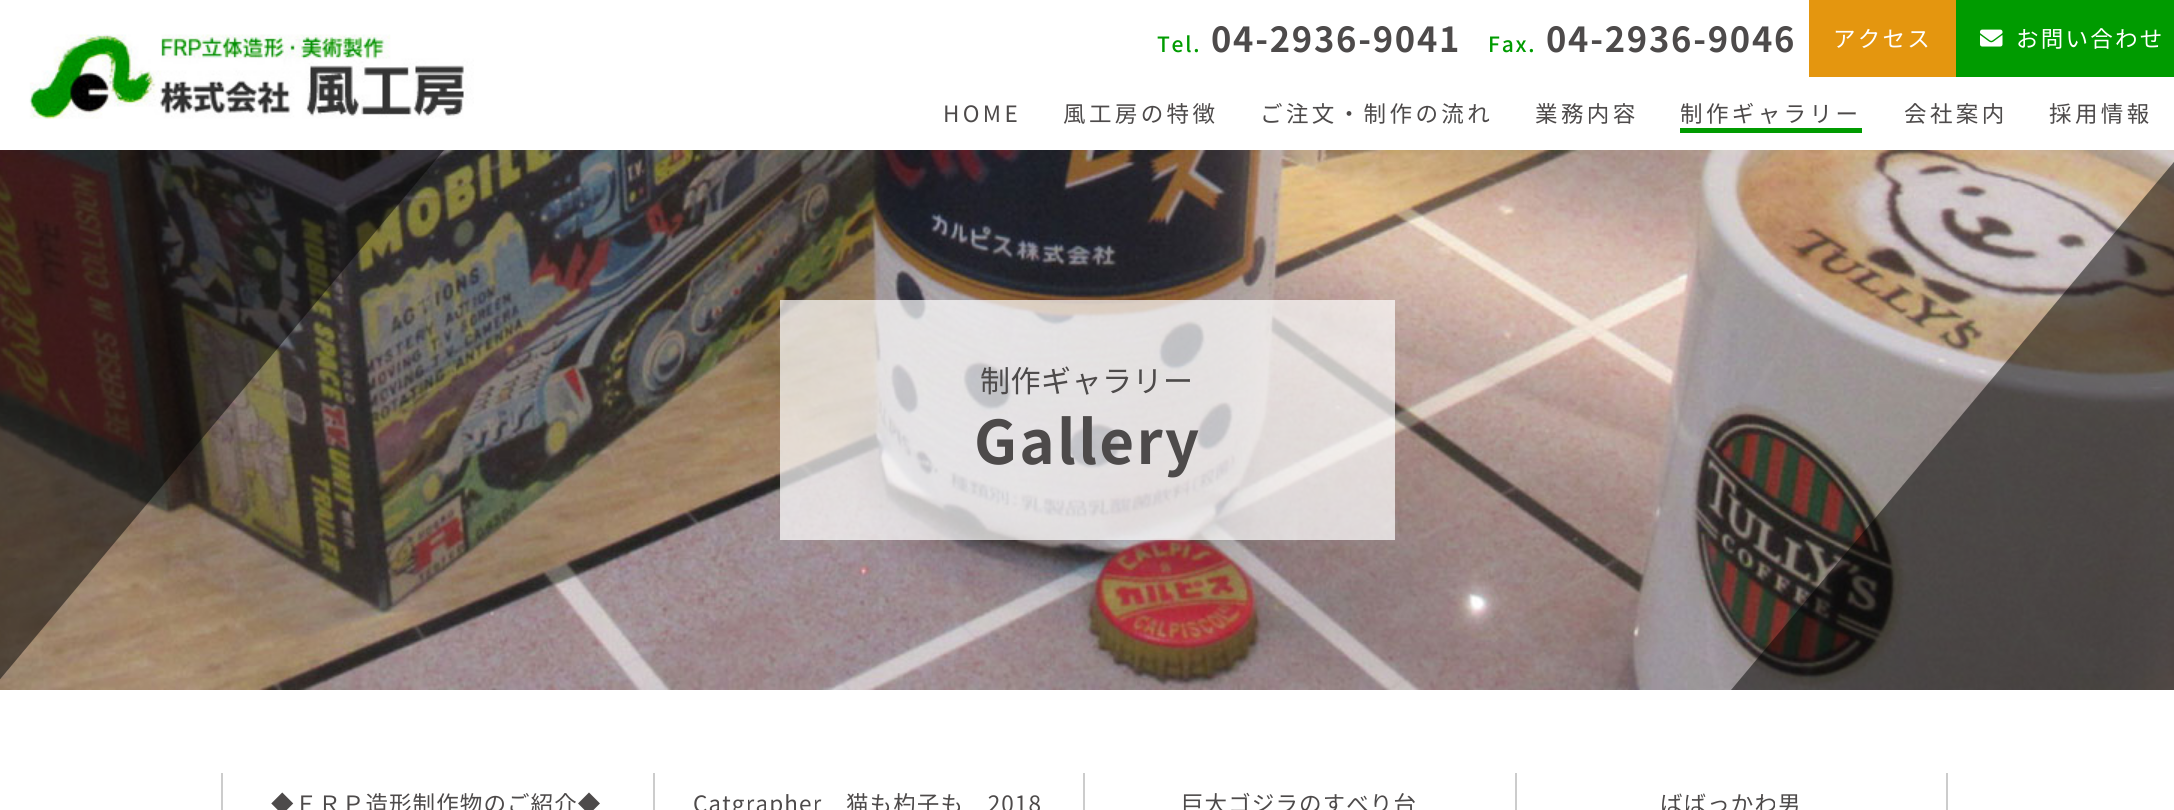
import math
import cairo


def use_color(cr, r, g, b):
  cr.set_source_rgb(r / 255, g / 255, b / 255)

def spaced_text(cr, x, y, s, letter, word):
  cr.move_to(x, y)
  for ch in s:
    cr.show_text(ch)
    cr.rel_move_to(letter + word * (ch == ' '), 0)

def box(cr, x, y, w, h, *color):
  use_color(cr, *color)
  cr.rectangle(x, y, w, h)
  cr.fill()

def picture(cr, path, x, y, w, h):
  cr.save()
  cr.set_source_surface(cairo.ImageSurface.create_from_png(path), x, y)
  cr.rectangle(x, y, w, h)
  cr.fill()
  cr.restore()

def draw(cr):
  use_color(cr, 255, 255, 255)
  cr.paint()
  picture(cr, "img_01.png", 29, 34, 445, 85)
  box(cr, 1809, 0, 147, 77, 228, 150, 15)
  box(cr, 1956, 0, 218, 77, 0, 155, 0)
  picture(cr, "img_02.png", 1980, 29, 23, 18)
  box(cr, 1680, 128, 182, 5, 0, 155, 0)
  picture(cr, "img_03.png", 0, 150, 2174, 540)
  cr.set_source_rgba(0, 0, 0, 0.5)
  cr.new_path()
  cr.move_to(-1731, 150)
  cr.line_to(444, 150)
  cr.line_to(-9, 690)
  cr.line_to(-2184, 690)
  cr.close_path()
  cr.fill()
  cr.new_path()
  cr.move_to(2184, 150)
  cr.line_to(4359, 150)
  cr.line_to(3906, 690)
  cr.line_to(1731, 690)
  cr.close_path()
  cr.fill()
  cr.set_source_rgba(1, 1, 1, 0.7)
  cr.rectangle(780, 300, 615, 240)
  cr.fill()
  box(cr, 653, 773, 2, 37, 204, 204, 204)
  box(cr, 221, 773, 2, 37, 204, 204, 204)
  box(cr, 1083, 773, 2, 37, 204, 204, 204)
  box(cr, 1515, 773, 2, 37, 204, 204, 204)
  box(cr, 1946, 773, 2, 37, 204, 204, 204)
  cr.select_font_face("Noto Sans JP Medium")
  cr.set_font_size(21)
  use_color(cr, 0, 155, 0)
  spaced_text(cr, 1157, 52, "Tel.", 1.75, 0)
  cr.select_font_face("Noto Sans JP", cairo.FONT_SLANT_NORMAL, cairo.FONT_WEIGHT_BOLD)
  cr.set_font_size(34.5)
  use_color(cr, 77, 74, 74)
  spaced_text(cr, 1211, 52, "04-2936-9041", 1.75, 0)
  cr.select_font_face("Noto Sans JP Medium")
  cr.set_font_size(21)
  use_color(cr, 0, 155, 0)
  spaced_text(cr, 1488, 52, "Fax.", 1.75, 0)
  cr.select_font_face("Noto Sans JP", cairo.FONT_SLANT_NORMAL, cairo.FONT_WEIGHT_BOLD)
  cr.set_font_size(34.5)
  use_color(cr, 77, 74, 74)
  spaced_text(cr, 1546, 52, "04-2936-9046", 1.75, 0)
  cr.select_font_face("Noto Sans JP")
  cr.set_font_size(22.5)
  use_color(cr, 255, 255, 255)
  spaced_text(cr, 1833, 47, "アクセス", 2.25, 0)
  spaced_text(cr, 2016, 47, "お問い合わせ", 2.25, 0)
  use_color(cr, 77, 74, 74)
  spaced_text(cr, 943, 122, "HOME", 3.4, 0)
  spaced_text(cr, 1063, 122, "風工房の特徴", 3.4, 0)
  spaced_text(cr, 1260, 122, "ご注文・制作の流れ", 3.4, 0)
  spaced_text(cr, 1535, 122, "業務内容", 3.4, 0)
  spaced_text(cr, 1680, 122, "制作ギャラリー", 3.4, 0)
  spaced_text(cr, 1904, 122, "会社案内", 3.4, 0)
  spaced_text(cr, 2049, 122, "採用情報", 3.4, 0)
  cr.set_font_size(30)
  spaced_text(cr, 980, 392, "制作ギャラリー", 0.5, 0)
  cr.select_font_face("Noto Sans JP", cairo.FONT_SLANT_NORMAL, cairo.FONT_WEIGHT_BOLD)
  cr.set_font_size(60)
  spaced_text(cr, 974, 464, "Gallery", 2.25, 0)
  cr.select_font_face("Noto Sans JP")
  cr.set_font_size(22.5)
  spaced_text(cr, 271, 812, "◆ＦＲＰ造形制作物のご紹介◆", 1.1, 0)
  spaced_text(cr, 693, 812, "Catgrapher　猫も杓子も　2018", 1.1, 0)
  spaced_text(cr, 1181, 812, "巨大ゴジラのすべり台", 1.1, 0)
  spaced_text(cr, 1660, 812, "ばばっかわ男", 1.1, 0)


surface = cairo.ImageSurface(cairo.FORMAT_RGB24, 2174, 810)
cr = cairo.Context(surface)
options = cairo.FontOptions()
options.set_hint_metrics(cairo.HINT_METRICS_OFF)
options.set_hint_style(cairo.HINT_STYLE_NONE)
cr.set_font_options(options)
cr.set_miter_limit(4)
draw(cr)
surface.write_to_png("out.png")
